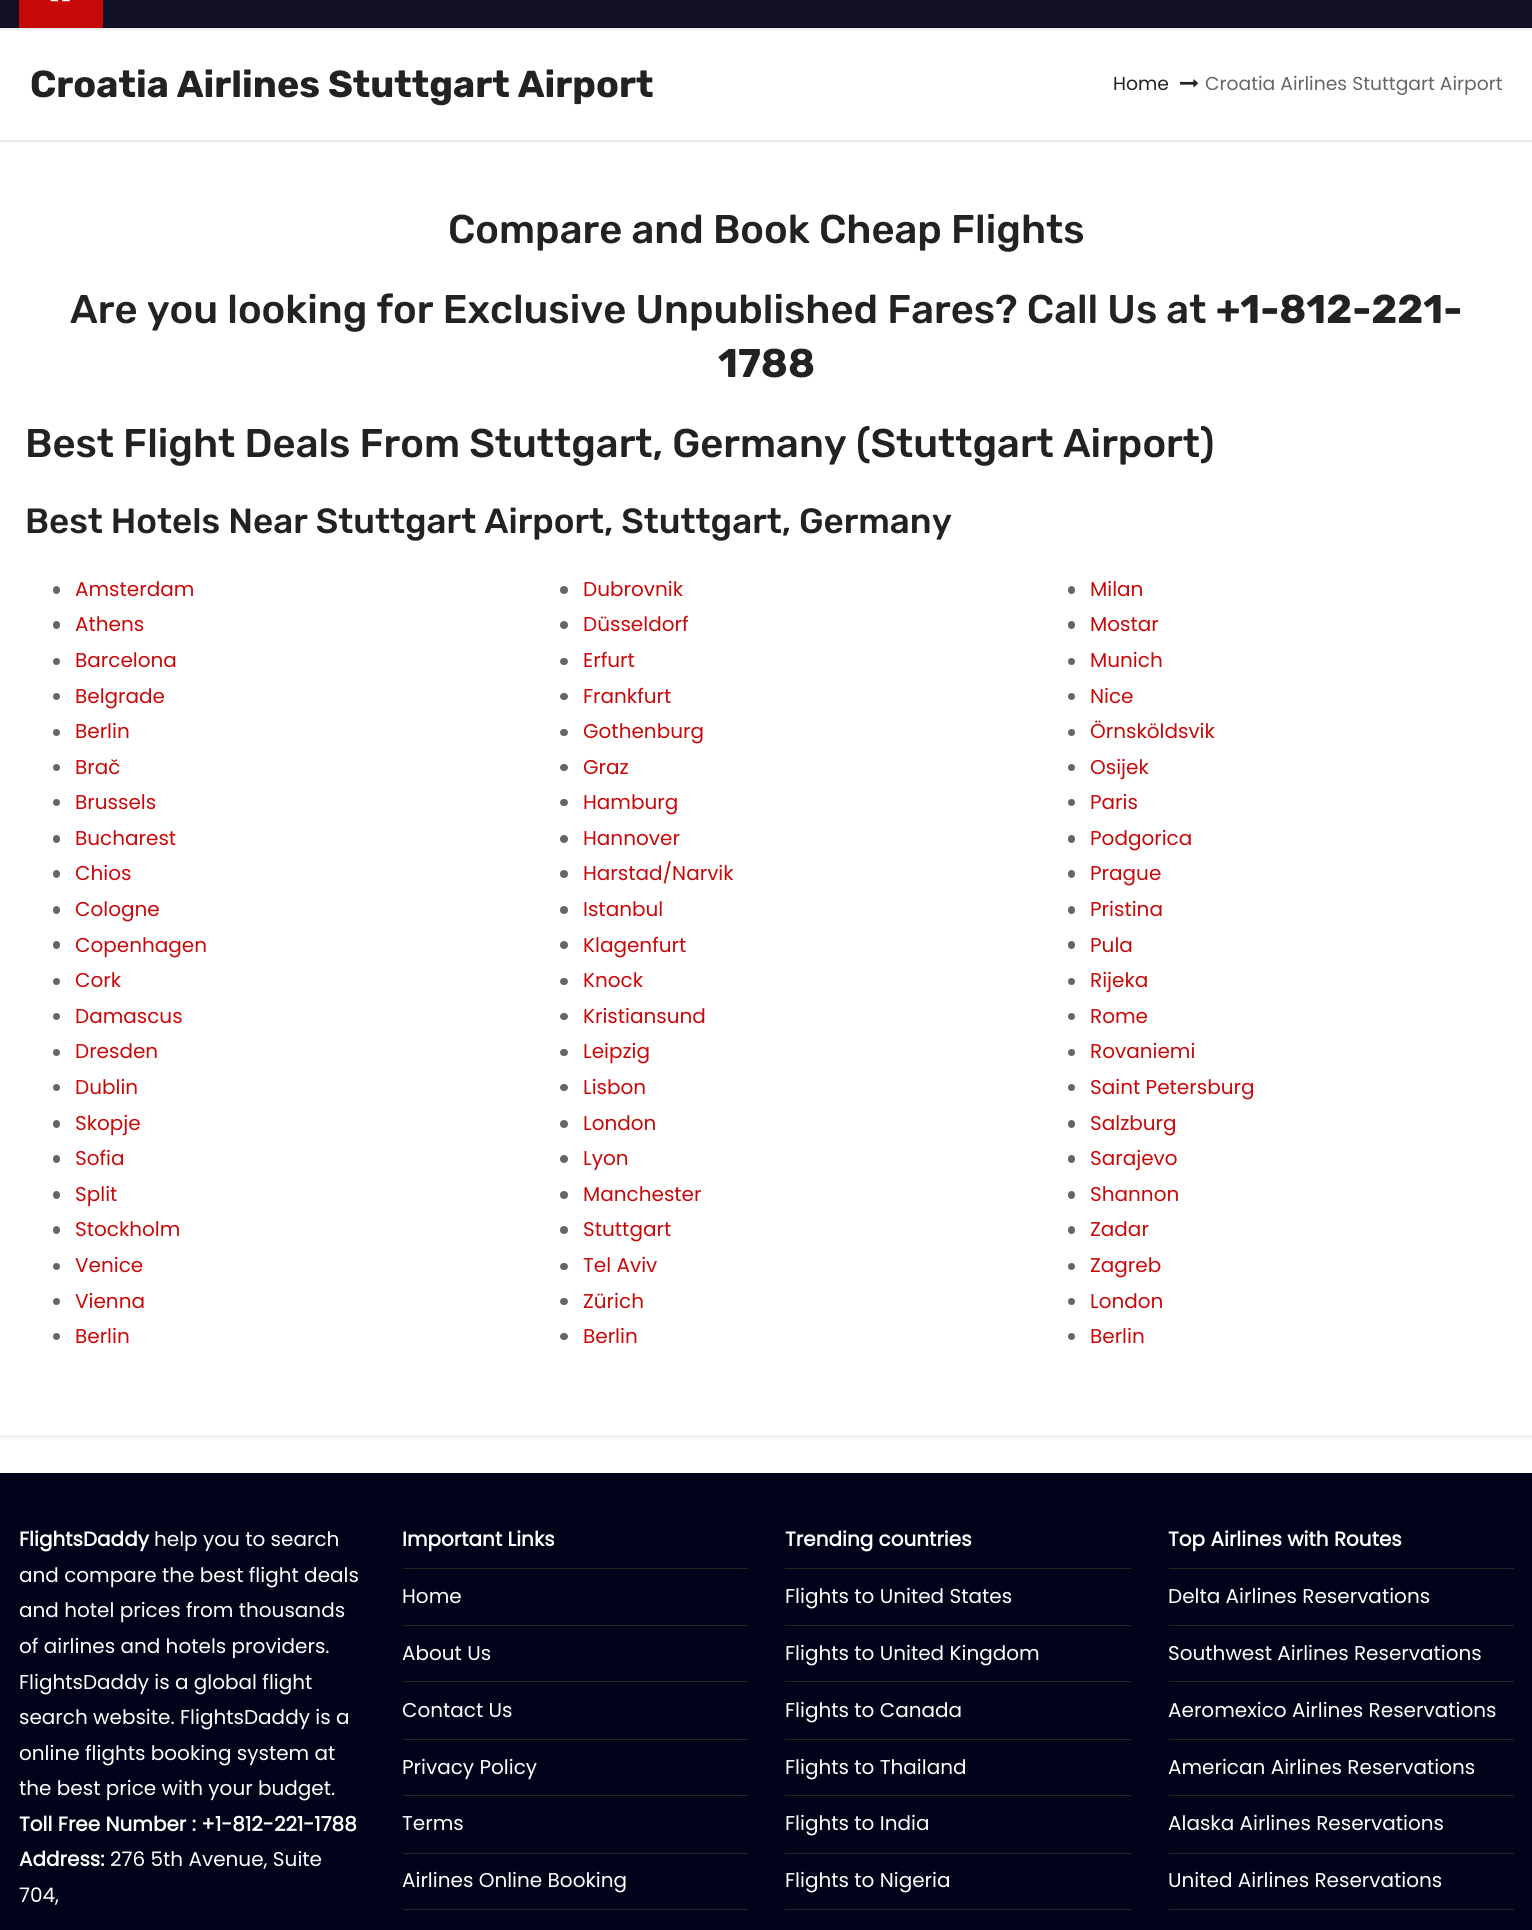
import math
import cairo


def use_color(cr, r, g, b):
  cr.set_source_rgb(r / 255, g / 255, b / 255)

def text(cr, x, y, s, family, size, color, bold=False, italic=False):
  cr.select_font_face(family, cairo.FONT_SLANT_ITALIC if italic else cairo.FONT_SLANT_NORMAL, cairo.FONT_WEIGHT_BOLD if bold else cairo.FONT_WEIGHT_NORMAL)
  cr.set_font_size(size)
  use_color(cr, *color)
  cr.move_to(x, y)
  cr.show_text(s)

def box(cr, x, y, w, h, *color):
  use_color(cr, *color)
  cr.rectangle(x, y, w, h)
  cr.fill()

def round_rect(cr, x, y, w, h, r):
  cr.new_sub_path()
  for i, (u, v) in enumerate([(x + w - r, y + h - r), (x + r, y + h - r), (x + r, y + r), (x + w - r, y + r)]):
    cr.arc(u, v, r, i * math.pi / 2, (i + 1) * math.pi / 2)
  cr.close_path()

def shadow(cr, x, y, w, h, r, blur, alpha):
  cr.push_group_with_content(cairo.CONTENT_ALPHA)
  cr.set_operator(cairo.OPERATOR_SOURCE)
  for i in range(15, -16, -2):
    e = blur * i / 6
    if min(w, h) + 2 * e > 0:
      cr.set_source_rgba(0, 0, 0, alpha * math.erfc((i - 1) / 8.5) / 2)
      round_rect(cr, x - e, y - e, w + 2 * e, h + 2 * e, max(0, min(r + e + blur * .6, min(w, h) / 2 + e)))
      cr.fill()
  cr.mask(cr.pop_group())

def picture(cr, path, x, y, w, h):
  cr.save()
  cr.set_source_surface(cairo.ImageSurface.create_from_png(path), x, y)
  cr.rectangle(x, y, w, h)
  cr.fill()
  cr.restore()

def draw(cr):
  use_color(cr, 255, 255, 255)
  cr.paint()
  use_color(cr, 0, 0, 0)
  shadow(cr, 0, -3, 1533, 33, 0, 1, 0.08)
  cr.save()
  cr.rectangle(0, 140, 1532, 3)
  cr.clip()
  shadow(cr, 0, 29, 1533, 112, 0, 2, 0.15)
  cr.restore()
  box(cr, 0, 0, 1532, 28, 18, 16, 38)
  box(cr, 19, 0, 84, 28, 199, 9, 9)
  picture(cr, "img_01.png", 50, 0, 20, 2)
  picture(cr, "img_02.png", 1180, 79, 18, 9)
  cr.save()
  cr.rectangle(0, 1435, 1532, 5)
  cr.clip()
  use_color(cr, 0, 0, 0)
  shadow(cr, 0, 180, 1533, 1258, 0, 2.5, 0.08)
  cr.restore()
  use_color(cr, 102, 102, 102)
  round_rect(cr, 53, 586, 7, 8, 3.5)
  cr.fill()
  round_rect(cr, 53, 621, 7, 8, 3.5)
  cr.fill()
  cr.arc(56.5, 661.5, 3.5, 0, 2 * math.pi)
  cr.fill()
  cr.arc(56.5, 696.5, 3.5, 0, 2 * math.pi)
  cr.fill()
  cr.arc(56.5, 732.5, 3.5, 0, 2 * math.pi)
  cr.fill()
  cr.arc(56.5, 767.5, 3.5, 0, 2 * math.pi)
  cr.fill()
  cr.arc(56.5, 802.5, 3.5, 0, 2 * math.pi)
  cr.fill()
  round_rect(cr, 53, 835, 7, 8, 3.5)
  cr.fill()
  round_rect(cr, 53, 870, 7, 8, 3.5)
  cr.fill()
  round_rect(cr, 53, 906, 7, 8, 3.5)
  cr.fill()
  round_rect(cr, 53, 941, 7, 8, 3.5)
  cr.fill()
  cr.arc(56.5, 981.5, 3.5, 0, 2 * math.pi)
  cr.fill()
  cr.arc(56.5, 1016.5, 3.5, 0, 2 * math.pi)
  cr.fill()
  cr.arc(56.5, 1052.5, 3.5, 0, 2 * math.pi)
  cr.fill()
  cr.arc(56.5, 1087.5, 3.5, 0, 2 * math.pi)
  cr.fill()
  round_rect(cr, 53, 1120, 7, 8, 3.5)
  cr.fill()
  round_rect(cr, 53, 1155, 7, 8, 3.5)
  cr.fill()
  round_rect(cr, 53, 1191, 7, 8, 3.5)
  cr.fill()
  round_rect(cr, 53, 1226, 7, 8, 3.5)
  cr.fill()
  cr.arc(56.5, 1266.5, 3.5, 0, 2 * math.pi)
  cr.fill()
  cr.arc(56.5, 1301.5, 3.5, 0, 2 * math.pi)
  cr.fill()
  cr.arc(56.5, 1336.5, 3.5, 0, 2 * math.pi)
  cr.fill()
  cr.arc(564, 590, 4, 0, 2 * math.pi)
  cr.fill()
  cr.arc(564, 625, 4, 0, 2 * math.pi)
  cr.fill()
  round_rect(cr, 560, 658, 8, 7, 3.5)
  cr.fill()
  round_rect(cr, 560, 693, 8, 7, 3.5)
  cr.fill()
  round_rect(cr, 560, 729, 8, 7, 3.5)
  cr.fill()
  round_rect(cr, 560, 764, 8, 7, 3.5)
  cr.fill()
  round_rect(cr, 560, 799, 8, 7, 3.5)
  cr.fill()
  cr.arc(564, 839, 4, 0, 2 * math.pi)
  cr.fill()
  cr.arc(564, 874, 4, 0, 2 * math.pi)
  cr.fill()
  cr.arc(564, 910, 4, 0, 2 * math.pi)
  cr.fill()
  cr.arc(564, 945, 4, 0, 2 * math.pi)
  cr.fill()
  round_rect(cr, 560, 978, 8, 7, 3.5)
  cr.fill()
  round_rect(cr, 560, 1013, 8, 7, 3.5)
  cr.fill()
  round_rect(cr, 560, 1049, 8, 7, 3.5)
  cr.fill()
  round_rect(cr, 560, 1084, 8, 7, 3.5)
  cr.fill()
  cr.arc(564, 1124, 4, 0, 2 * math.pi)
  cr.fill()
  cr.arc(564, 1159, 4, 0, 2 * math.pi)
  cr.fill()
  cr.arc(564, 1195, 4, 0, 2 * math.pi)
  cr.fill()
  cr.arc(564, 1230, 4, 0, 2 * math.pi)
  cr.fill()
  round_rect(cr, 560, 1263, 8, 7, 3.5)
  cr.fill()
  round_rect(cr, 560, 1298, 8, 7, 3.5)
  cr.fill()
  round_rect(cr, 560, 1333, 8, 7, 3.5)
  cr.fill()
  round_rect(cr, 1068, 586, 7, 8, 3.5)
  cr.fill()
  round_rect(cr, 1068, 621, 7, 8, 3.5)
  cr.fill()
  cr.arc(1071.5, 661.5, 3.5, 0, 2 * math.pi)
  cr.fill()
  cr.arc(1071.5, 696.5, 3.5, 0, 2 * math.pi)
  cr.fill()
  cr.arc(1071.5, 732.5, 3.5, 0, 2 * math.pi)
  cr.fill()
  cr.arc(1071.5, 767.5, 3.5, 0, 2 * math.pi)
  cr.fill()
  cr.arc(1071.5, 802.5, 3.5, 0, 2 * math.pi)
  cr.fill()
  round_rect(cr, 1068, 835, 7, 8, 3.5)
  cr.fill()
  round_rect(cr, 1068, 870, 7, 8, 3.5)
  cr.fill()
  round_rect(cr, 1068, 906, 7, 8, 3.5)
  cr.fill()
  round_rect(cr, 1068, 941, 7, 8, 3.5)
  cr.fill()
  cr.arc(1071.5, 981.5, 3.5, 0, 2 * math.pi)
  cr.fill()
  cr.arc(1071.5, 1016.5, 3.5, 0, 2 * math.pi)
  cr.fill()
  cr.arc(1071.5, 1052.5, 3.5, 0, 2 * math.pi)
  cr.fill()
  cr.arc(1071.5, 1087.5, 3.5, 0, 2 * math.pi)
  cr.fill()
  round_rect(cr, 1068, 1120, 7, 8, 3.5)
  cr.fill()
  round_rect(cr, 1068, 1155, 7, 8, 3.5)
  cr.fill()
  round_rect(cr, 1068, 1191, 7, 8, 3.5)
  cr.fill()
  round_rect(cr, 1068, 1226, 7, 8, 3.5)
  cr.fill()
  cr.arc(1071.5, 1266.5, 3.5, 0, 2 * math.pi)
  cr.fill()
  cr.arc(1071.5, 1301.5, 3.5, 0, 2 * math.pi)
  cr.fill()
  cr.arc(1071.5, 1336.5, 3.5, 0, 2 * math.pi)
  cr.fill()
  box(cr, 0, 1473, 1532, 457, 0, 3, 25)
  box(cr, 403, 1568, 345, 1, 36, 36, 37)
  box(cr, 403, 1625, 345, 1, 36, 36, 37)
  box(cr, 403, 1681, 345, 1, 36, 36, 37)
  box(cr, 403, 1739, 345, 1, 36, 36, 37)
  box(cr, 403, 1795, 345, 1, 36, 36, 37)
  box(cr, 403, 1853, 345, 1, 36, 36, 37)
  box(cr, 403, 1909, 345, 1, 36, 36, 37)
  box(cr, 785, 1568, 346, 1, 36, 36, 37)
  box(cr, 785, 1625, 346, 1, 36, 36, 37)
  box(cr, 785, 1681, 346, 1, 36, 36, 37)
  box(cr, 785, 1739, 346, 1, 36, 36, 37)
  box(cr, 785, 1795, 346, 1, 36, 36, 37)
  box(cr, 785, 1853, 346, 1, 36, 36, 37)
  box(cr, 785, 1909, 346, 1, 36, 36, 37)
  box(cr, 1169, 1568, 345, 1, 36, 36, 37)
  box(cr, 1169, 1625, 345, 1, 36, 36, 37)
  box(cr, 1169, 1681, 345, 1, 36, 36, 37)
  box(cr, 1169, 1739, 345, 1, 36, 36, 37)
  box(cr, 1169, 1795, 345, 1, 36, 36, 37)
  box(cr, 1169, 1853, 345, 1, 36, 36, 37)
  box(cr, 1169, 1909, 345, 1, 36, 36, 37)
  text(cr, 30, 97, "Croatia Airlines Stuttgart Airport", "Rubik", 37.5, (34, 34, 34), bold=True)
  text(cr, 1113, 90, "Home", "Poppins", 18.75, (34, 34, 34))
  text(cr, 1205, 90, "Croatia Airlines Stuttgart Airport", "Poppins", 18.75, (102, 102, 102))
  text(cr, 448, 243, "Compare and Book Cheap Flights", "Rubik Medium", 40, (34, 34, 34))
  text(cr, 70, 323, "Are you looking for Exclusive Unpublished Fares? Call Us at", "Rubik Medium", 40, (34, 34, 34))
  text(cr, 1216, 323, "+1-812-221-", "Rubik", 40, (34, 34, 34), bold=True)
  text(cr, 718, 377, "1788", "Rubik", 40, (34, 34, 34), bold=True)
  text(cr, 25, 457, "Best Flight Deals From Stuttgart, Germany (Stuttgart Airport)", "Rubik Medium", 40, (34, 34, 34))
  text(cr, 25, 533, "Best Hotels Near Stuttgart Airport, Stuttgart, Germany", "Rubik Medium", 35, (34, 34, 34))
  text(cr, 75, 596, "Amsterdam", "Poppins", 20, (199, 9, 9))
  text(cr, 75, 631, "Athens", "Poppins", 20, (199, 9, 9))
  text(cr, 75, 667, "Barcelona", "Poppins", 20, (199, 9, 9))
  text(cr, 75, 703, "Belgrade", "Poppins", 20, (199, 9, 9))
  text(cr, 75, 738, "Berlin", "Poppins", 20, (199, 9, 9))
  text(cr, 75, 774, "Brač", "Poppins", 20, (199, 9, 9))
  text(cr, 75, 809, "Brussels", "Poppins", 20, (199, 9, 9))
  text(cr, 75, 845, "Bucharest", "Poppins", 20, (199, 9, 9))
  text(cr, 75, 880, "Chios", "Poppins", 20, (199, 9, 9))
  text(cr, 75, 916, "Cologne", "Poppins", 20, (199, 9, 9))
  text(cr, 75, 952, "Copenhagen", "Poppins", 20, (199, 9, 9))
  text(cr, 75, 987, "Cork", "Poppins", 20, (199, 9, 9))
  text(cr, 75, 1023, "Damascus", "Poppins", 20, (199, 9, 9))
  text(cr, 75, 1058, "Dresden", "Poppins", 20, (199, 9, 9))
  text(cr, 75, 1094, "Dublin", "Poppins", 20, (199, 9, 9))
  text(cr, 75, 1130, "Skopje", "Poppins", 20, (199, 9, 9))
  text(cr, 75, 1165, "Sofia", "Poppins", 20, (199, 9, 9))
  text(cr, 75, 1201, "Split", "Poppins", 20, (199, 9, 9))
  text(cr, 75, 1236, "Stockholm", "Poppins", 20, (199, 9, 9))
  text(cr, 75, 1272, "Venice", "Poppins", 20, (199, 9, 9))
  text(cr, 75, 1308, "Vienna", "Poppins", 20, (199, 9, 9))
  text(cr, 75, 1343, "Berlin", "Poppins", 20, (199, 9, 9))
  text(cr, 583, 596, "Dubrovnik", "Poppins", 20, (199, 9, 9))
  text(cr, 583, 631, "Düsseldorf", "Poppins", 20, (199, 9, 9))
  text(cr, 583, 667, "Erfurt", "Poppins", 20, (199, 9, 9))
  text(cr, 583, 703, "Frankfurt", "Poppins", 20, (199, 9, 9))
  text(cr, 583, 738, "Gothenburg", "Poppins", 20, (199, 9, 9))
  text(cr, 583, 774, "Graz", "Poppins", 20, (199, 9, 9))
  text(cr, 583, 809, "Hamburg", "Poppins", 20, (199, 9, 9))
  text(cr, 583, 845, "Hannover", "Poppins", 20, (199, 9, 9))
  text(cr, 583, 880, "Harstad/Narvik", "Poppins", 20, (199, 9, 9))
  text(cr, 583, 916, "Istanbul", "Poppins", 20, (199, 9, 9))
  text(cr, 583, 952, "Klagenfurt", "Poppins", 20, (199, 9, 9))
  text(cr, 583, 987, "Knock", "Poppins", 20, (199, 9, 9))
  text(cr, 583, 1023, "Kristiansund", "Poppins", 20, (199, 9, 9))
  text(cr, 583, 1058, "Leipzig", "Poppins", 20, (199, 9, 9))
  text(cr, 583, 1094, "Lisbon", "Poppins", 20, (199, 9, 9))
  text(cr, 583, 1130, "London", "Poppins", 20, (199, 9, 9))
  text(cr, 583, 1165, "Lyon", "Poppins", 20, (199, 9, 9))
  text(cr, 583, 1201, "Manchester", "Poppins", 20, (199, 9, 9))
  text(cr, 583, 1236, "Stuttgart", "Poppins", 20, (199, 9, 9))
  text(cr, 583, 1272, "Tel Aviv", "Poppins", 20, (199, 9, 9))
  text(cr, 583, 1308, "Zürich", "Poppins", 20, (199, 9, 9))
  text(cr, 583, 1343, "Berlin", "Poppins", 20, (199, 9, 9))
  text(cr, 1090, 596, "Milan", "Poppins", 20, (199, 9, 9))
  text(cr, 1090, 631, "Mostar", "Poppins", 20, (199, 9, 9))
  text(cr, 1090, 667, "Munich", "Poppins", 20, (199, 9, 9))
  text(cr, 1090, 703, "Nice", "Poppins", 20, (199, 9, 9))
  text(cr, 1090, 738, "Örnsköldsvik", "Poppins", 20, (199, 9, 9))
  text(cr, 1090, 774, "Osijek", "Poppins", 20, (199, 9, 9))
  text(cr, 1090, 809, "Paris", "Poppins", 20, (199, 9, 9))
  text(cr, 1090, 845, "Podgorica", "Poppins", 20, (199, 9, 9))
  text(cr, 1090, 880, "Prague", "Poppins", 20, (199, 9, 9))
  text(cr, 1090, 916, "Pristina", "Poppins", 20, (199, 9, 9))
  text(cr, 1090, 952, "Pula", "Poppins", 20, (199, 9, 9))
  text(cr, 1090, 987, "Rijeka", "Poppins", 20, (199, 9, 9))
  text(cr, 1090, 1023, "Rome", "Poppins", 20, (199, 9, 9))
  text(cr, 1090, 1058, "Rovaniemi", "Poppins", 20, (199, 9, 9))
  text(cr, 1090, 1094, "Saint Petersburg", "Poppins", 20, (199, 9, 9))
  text(cr, 1090, 1130, "Salzburg", "Poppins", 20, (199, 9, 9))
  text(cr, 1090, 1165, "Sarajevo", "Poppins", 20, (199, 9, 9))
  text(cr, 1090, 1201, "Shannon", "Poppins", 20, (199, 9, 9))
  text(cr, 1090, 1236, "Zadar", "Poppins", 20, (199, 9, 9))
  text(cr, 1090, 1272, "Zagreb", "Poppins", 20, (199, 9, 9))
  text(cr, 1090, 1308, "London", "Poppins", 20, (199, 9, 9))
  text(cr, 1090, 1343, "Berlin", "Poppins", 20, (199, 9, 9))
  text(cr, 19, 1546, "FlightsDaddy", "Poppins", 20, (255, 255, 255), bold=True)
  text(cr, 154, 1546, "help you to search", "Poppins", 20, (255, 255, 255))
  text(cr, 19, 1582, "and compare the best flight deals", "Poppins", 20, (255, 255, 255))
  text(cr, 19, 1617, "and hotel prices from thousands", "Poppins", 20, (255, 255, 255))
  text(cr, 19, 1653, "of airlines and hotels providers.", "Poppins", 20, (255, 255, 255))
  text(cr, 19, 1689, "FlightsDaddy is a global flight", "Poppins", 20, (255, 255, 255))
  text(cr, 19, 1724, "search website. FlightsDaddy is a", "Poppins", 20, (255, 255, 255))
  text(cr, 19, 1760, "online flights booking system at", "Poppins", 20, (255, 255, 255))
  text(cr, 19, 1795, "the best price with your budget.", "Poppins", 20, (255, 255, 255))
  text(cr, 19, 1831, "Toll Free Number : +1-812-221-1788", "Poppins", 20, (255, 255, 255), bold=True)
  text(cr, 19, 1866, "Address:", "Poppins", 20, (255, 255, 255), bold=True)
  text(cr, 110, 1866, "276 5th Avenue, Suite", "Poppins", 20, (255, 255, 255))
  text(cr, 19, 1902, "704,", "Poppins", 20, (255, 255, 255))
  text(cr, 402, 1546, "Important Links", "Poppins", 20, (255, 255, 255), bold=True)
  text(cr, 402, 1603, "Home", "Poppins", 20, (255, 255, 255))
  text(cr, 402, 1660, "About Us", "Poppins", 20, (255, 255, 255))
  cr.save()
  cr.rectangle(403, 1683, 345, 56)
  cr.clip()
  text(cr, 402, 1717, "Contact Us", "Poppins", 20, (255, 255, 255))
  cr.restore()
  text(cr, 402, 1774, "Privacy Policy", "Poppins", 20, (255, 255, 255))
  text(cr, 402, 1830, "Terms", "Poppins", 20, (255, 255, 255))
  text(cr, 402, 1887, "Airlines Online Booking", "Poppins", 20, (255, 255, 255))
  text(cr, 785, 1546, "Trending countries", "Poppins", 20, (255, 255, 255), bold=True)
  text(cr, 785, 1603, "Flights to United States", "Poppins", 20, (255, 255, 255))
  text(cr, 785, 1660, "Flights to United Kingdom", "Poppins", 20, (255, 255, 255))
  text(cr, 785, 1717, "Flights to Canada", "Poppins", 20, (255, 255, 255))
  text(cr, 785, 1774, "Flights to Thailand", "Poppins", 20, (255, 255, 255))
  text(cr, 785, 1830, "Flights to India", "Poppins", 20, (255, 255, 255))
  text(cr, 785, 1887, "Flights to Nigeria", "Poppins", 20, (255, 255, 255))
  text(cr, 1168, 1546, "Top Airlines with Routes", "Poppins", 20, (255, 255, 255), bold=True)
  text(cr, 1168, 1603, "Delta Airlines Reservations", "Poppins", 20, (255, 255, 255))
  text(cr, 1168, 1660, "Southwest Airlines Reservations", "Poppins", 20, (255, 255, 255))
  text(cr, 1168, 1717, "Aeromexico Airlines Reservations", "Poppins", 20, (255, 255, 255))
  text(cr, 1168, 1774, "American Airlines Reservations", "Poppins", 20, (255, 255, 255))
  text(cr, 1168, 1830, "Alaska Airlines Reservations", "Poppins", 20, (255, 255, 255))
  text(cr, 1168, 1887, "United Airlines Reservations", "Poppins", 20, (255, 255, 255))


surface = cairo.ImageSurface(cairo.FORMAT_RGB24, 1532, 1930)
cr = cairo.Context(surface)
options = cairo.FontOptions()
options.set_hint_metrics(cairo.HINT_METRICS_OFF)
options.set_hint_style(cairo.HINT_STYLE_NONE)
cr.set_font_options(options)
cr.set_miter_limit(4)
draw(cr)
surface.write_to_png("out.png")
